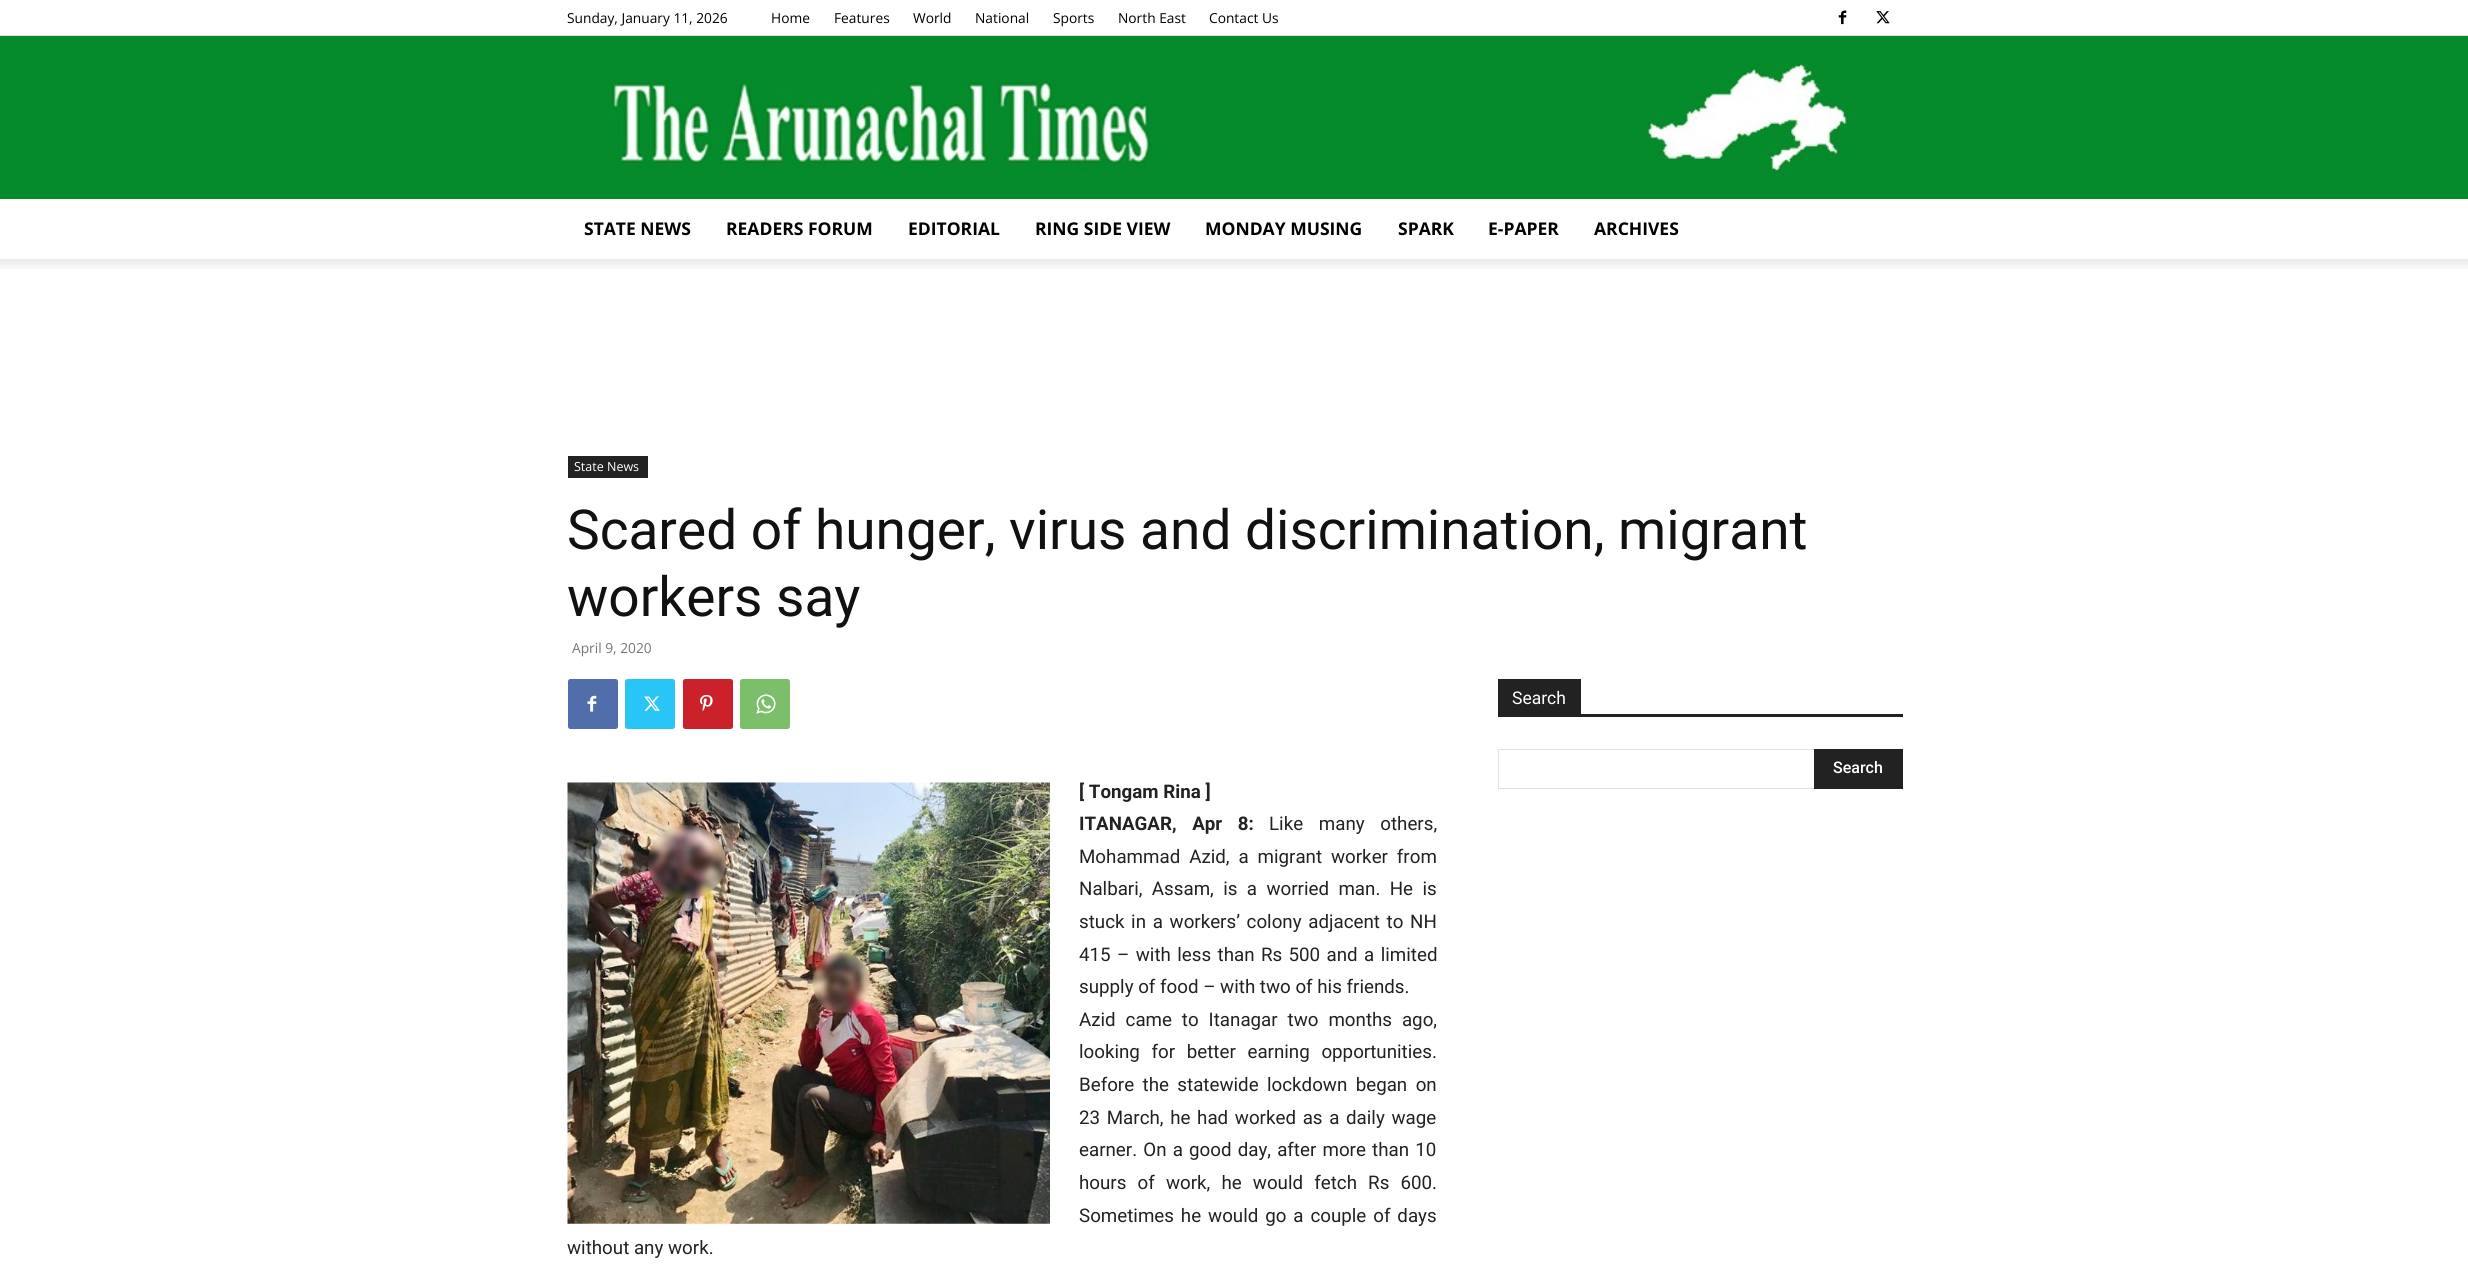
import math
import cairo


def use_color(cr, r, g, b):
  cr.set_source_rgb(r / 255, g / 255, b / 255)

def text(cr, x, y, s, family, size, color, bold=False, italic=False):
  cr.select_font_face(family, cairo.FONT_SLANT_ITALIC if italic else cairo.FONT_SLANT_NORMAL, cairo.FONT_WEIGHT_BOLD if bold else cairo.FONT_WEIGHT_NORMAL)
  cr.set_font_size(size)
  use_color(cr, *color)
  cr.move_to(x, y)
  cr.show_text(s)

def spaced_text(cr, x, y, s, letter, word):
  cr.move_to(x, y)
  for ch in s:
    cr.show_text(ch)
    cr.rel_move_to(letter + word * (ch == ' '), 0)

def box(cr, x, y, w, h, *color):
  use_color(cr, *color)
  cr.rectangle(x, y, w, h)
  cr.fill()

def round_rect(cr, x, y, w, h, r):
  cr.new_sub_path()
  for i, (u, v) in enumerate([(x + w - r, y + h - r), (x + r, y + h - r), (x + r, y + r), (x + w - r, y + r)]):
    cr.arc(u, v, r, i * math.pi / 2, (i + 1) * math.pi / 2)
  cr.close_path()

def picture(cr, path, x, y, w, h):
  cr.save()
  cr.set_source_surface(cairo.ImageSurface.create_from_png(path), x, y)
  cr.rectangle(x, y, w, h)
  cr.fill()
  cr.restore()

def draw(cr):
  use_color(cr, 255, 255, 255)
  cr.paint()
  box(cr, 0, 35, 2468, 1, 224, 224, 224)
  picture(cr, "img_01.png", 1838, 10, 9, 15)
  picture(cr, "img_02.png", 1876, 11, 14, 13)
  box(cr, 0, 36, 2468, 163, 5, 139, 44)
  picture(cr, "img_03.png", 606, 60, 1249, 120)
  picture(cr, "img_04.png", 0, 259, 2468, 10)
  box(cr, 568, 456, 80, 22, 34, 34, 34)
  box(cr, 1498, 714, 405, 3, 34, 34, 34)
  box(cr, 1498, 679, 83, 35, 34, 34, 34)
  box(cr, 1498, 749, 316, 1, 225, 225, 225)
  box(cr, 1498, 788, 316, 1, 225, 225, 225)
  box(cr, 1498, 749, 1, 40, 225, 225, 225)
  box(cr, 1814, 749, 89, 40, 34, 34, 34)
  use_color(cr, 81, 110, 171)
  round_rect(cr, 568, 679, 50, 50, 2.5)
  cr.fill()
  picture(cr, "img_05.png", 587, 695, 10, 17)
  use_color(cr, 41, 197, 246)
  round_rect(cr, 625, 679, 50, 50, 2.5)
  cr.fill()
  picture(cr, "img_06.png", 644, 696, 16, 15)
  use_color(cr, 202, 33, 42)
  round_rect(cr, 683, 679, 50, 50, 2.5)
  cr.fill()
  picture(cr, "img_07.png", 700, 694, 13, 17)
  use_color(cr, 123, 191, 106)
  round_rect(cr, 740, 679, 50, 50, 2.5)
  cr.fill()
  picture(cr, "img_08.png", 756, 694, 20, 20)
  picture(cr, "img_09.png", 567, 782, 483, 442)
  text(cr, 567, 23, "Sunday, January 11, 2026", "Open Sans", 13.75, (0, 0, 0))
  text(cr, 771, 23, "Home", "Open Sans", 13.75, (0, 0, 0))
  text(cr, 834, 23, "Features", "Open Sans", 13.75, (0, 0, 0))
  text(cr, 913, 23, "World", "Open Sans", 13.75, (0, 0, 0))
  text(cr, 975, 23, "National", "Open Sans", 13.75, (0, 0, 0))
  text(cr, 1053, 23, "Sports", "Open Sans", 13.75, (0, 0, 0))
  text(cr, 1118, 23, "North East", "Open Sans", 13.75, (0, 0, 0))
  text(cr, 1209, 23, "Contact Us", "Open Sans", 13.75, (0, 0, 0))
  text(cr, 584, 235, "STATE NEWS", "Open Sans", 17.5, (0, 0, 0), bold=True)
  text(cr, 726, 235, "READERS FORUM", "Open Sans", 17.5, (0, 0, 0), bold=True)
  text(cr, 908, 235, "EDITORIAL", "Open Sans", 17.5, (0, 0, 0), bold=True)
  text(cr, 1035, 235, "RING SIDE VIEW", "Open Sans", 17.5, (0, 0, 0), bold=True)
  text(cr, 1205, 235, "MONDAY MUSING", "Open Sans", 17.5, (0, 0, 0), bold=True)
  text(cr, 1398, 235, "SPARK", "Open Sans", 17.5, (0, 0, 0), bold=True)
  text(cr, 1488, 235, "E-PAPER", "Open Sans", 17.5, (0, 0, 0), bold=True)
  text(cr, 1594, 235, "ARCHIVES", "Open Sans", 17.5, (0, 0, 0), bold=True)
  text(cr, 574, 471, "State News", "Open Sans", 12.5, (255, 255, 255))
  text(cr, 567, 549, "Scared of hunger, virus and discrimination, migrant", "Roboto", 55, (17, 17, 17))
  text(cr, 567, 616, "workers say", "Roboto", 55, (17, 17, 17))
  text(cr, 572, 653, "April 9, 2020", "Open Sans", 13.75, (118, 118, 118))
  text(cr, 1512, 704, "Search", "Roboto", 17.5, (255, 255, 255))
  text(cr, 1833, 773, "Search", "Roboto Medium", 16, (255, 255, 255))
  text(cr, 1079, 798, "[ Tongam Rina ]", "Roboto", 18.75, (34, 34, 34), bold=True)
  spaced_text(cr, 1079, 830, "ITANAGAR, Apr 8:", 0, 11)
  cr.select_font_face("Roboto")
  spaced_text(cr, 1269, 830, "Like many others,", 0, 11)
  spaced_text(cr, 1079, 863, "Mohammad Azid, a migrant worker from", 0, 4.25)
  spaced_text(cr, 1079, 895, "Nalbari, Assam, is a worried man. He is", 0, 4.75)
  spaced_text(cr, 1079, 928, "stuck in a workers’ colony adjacent to NH", 0, 2)
  spaced_text(cr, 1079, 961, "415 – with less than Rs 500 and a limited", 0, 1.75)
  text(cr, 1079, 993, "supply of food – with two of his friends.", "Roboto", 18.75, (34, 34, 34))
  spaced_text(cr, 1079, 1026, "Azid came to Itanagar two months ago,", 0, 5.25)
  spaced_text(cr, 1079, 1058, "looking for better earning opportunities.", 0, 7)
  spaced_text(cr, 1079, 1091, "Before the statewide lockdown began on", 0, 3.75)
  spaced_text(cr, 1079, 1124, "23 March, he had worked as a daily wage", 0, 2)
  spaced_text(cr, 1079, 1156, "earner. On a good day, after more than 10", 0, 1.5)
  spaced_text(cr, 1079, 1189, "hours of work, he would fetch Rs 600.", 0, 6.5)
  spaced_text(cr, 1079, 1222, "Sometimes he would go a couple of days", 0, 2.25)
  text(cr, 567, 1254, "without any work.", "Roboto", 18.75, (34, 34, 34))


surface = cairo.ImageSurface(cairo.FORMAT_RGB24, 2468, 1278)
cr = cairo.Context(surface)
options = cairo.FontOptions()
options.set_hint_metrics(cairo.HINT_METRICS_OFF)
options.set_hint_style(cairo.HINT_STYLE_NONE)
cr.set_font_options(options)
cr.set_miter_limit(4)
draw(cr)
surface.write_to_png("out.png")
